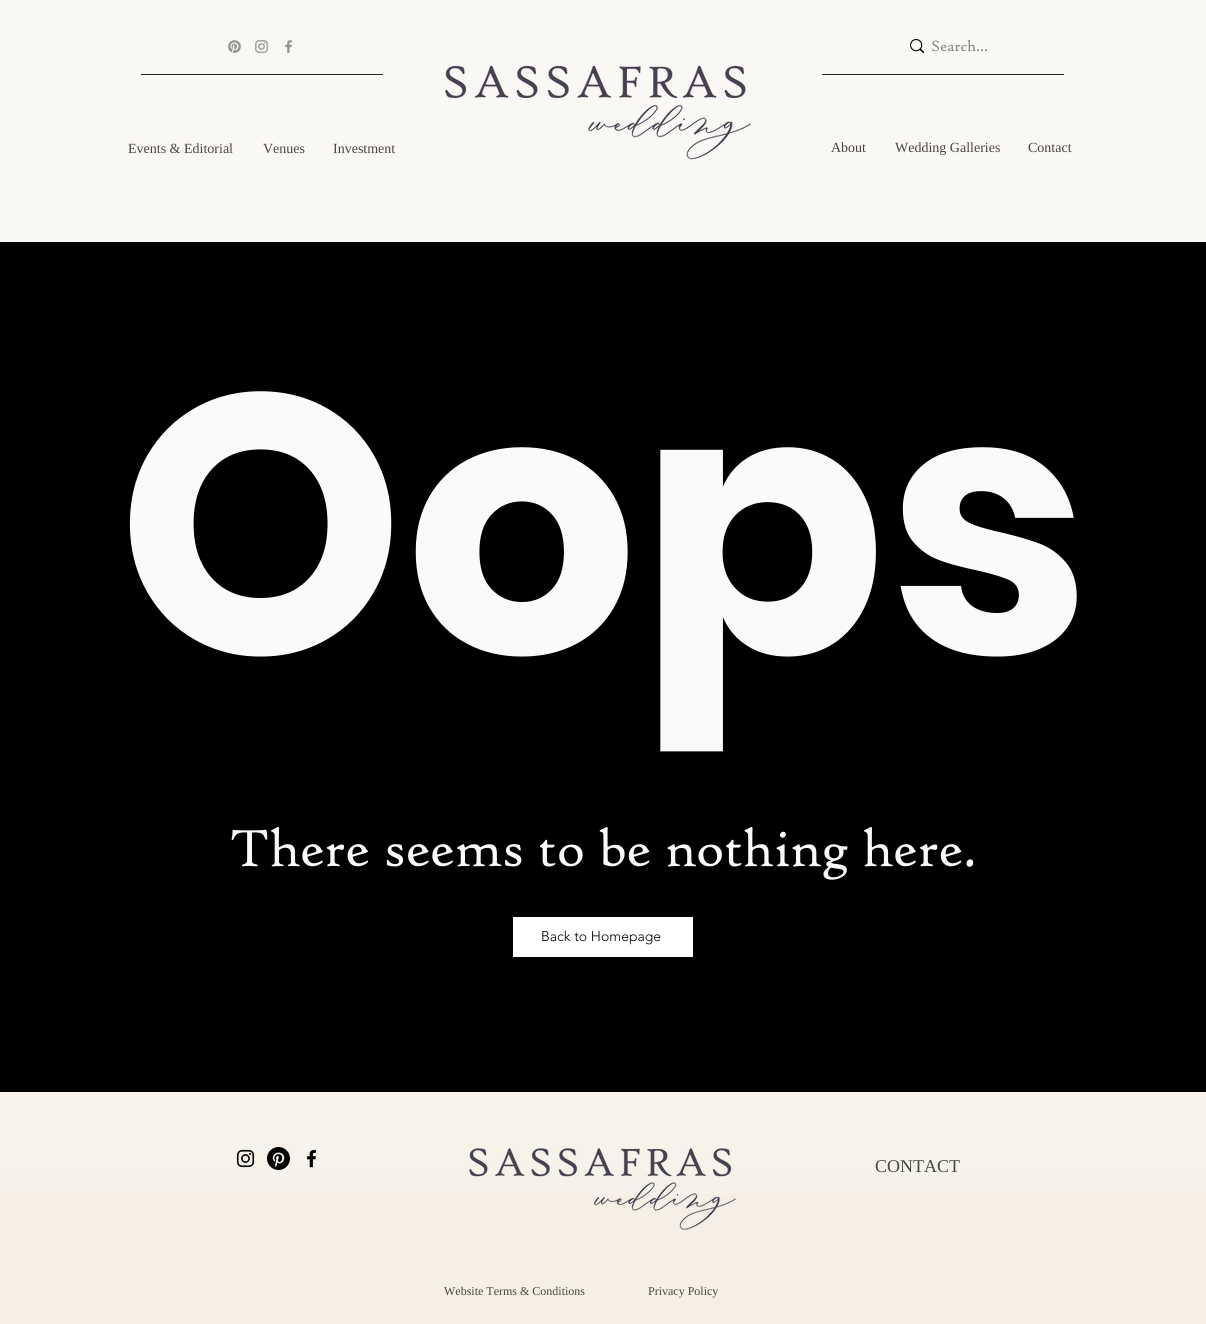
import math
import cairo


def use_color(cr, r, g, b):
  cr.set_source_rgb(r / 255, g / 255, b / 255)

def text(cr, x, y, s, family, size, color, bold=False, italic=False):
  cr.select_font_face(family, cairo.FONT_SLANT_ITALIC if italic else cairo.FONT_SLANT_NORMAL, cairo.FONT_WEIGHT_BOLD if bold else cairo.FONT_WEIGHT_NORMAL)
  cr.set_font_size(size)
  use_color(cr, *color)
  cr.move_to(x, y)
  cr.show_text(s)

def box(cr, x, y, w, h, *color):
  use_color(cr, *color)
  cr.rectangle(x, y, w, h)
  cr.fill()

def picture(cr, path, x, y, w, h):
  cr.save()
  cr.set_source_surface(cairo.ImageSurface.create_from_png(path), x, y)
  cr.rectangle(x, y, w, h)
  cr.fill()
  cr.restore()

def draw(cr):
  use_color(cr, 250, 248, 245)
  cr.paint()
  picture(cr, "img_01.png", 228, 40, 13, 13)
  picture(cr, "img_02.png", 255, 40, 13, 13)
  picture(cr, "img_03.png", 285, 40, 7, 13)
  picture(cr, "img_04.png", 910, 39, 14, 14)
  box(cr, 141, 74, 242, 1, 40, 38, 38)
  picture(cr, "img_05.png", 445, 65, 306, 95)
  box(cr, 822, 74, 242, 1, 40, 38, 38)
  box(cr, 0, 242, 1206, 850, 0, 0, 0)
  box(cr, 513, 917, 180, 40, 255, 255, 255)
  box(cr, 0, 1092, 1206, 232, 245, 239, 229)
  picture(cr, "img_06.png", 0, 1092, 1206, 102)
  picture(cr, "img_07.png", 236, 1149, 19, 19)
  picture(cr, "img_08.png", 267, 1147, 23, 23)
  picture(cr, "img_09.png", 306, 1149, 11, 19)
  picture(cr, "img_10.png", 469, 1148, 267, 82)
  text(cr, 931, 51, "Search...", "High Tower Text", 16, (122, 130, 131))
  text(cr, 128, 153, "Events & Editorial", "Liberation Serif", 14, (74, 70, 64))
  text(cr, 263, 153, "Venues", "Liberation Serif", 14, (74, 70, 64))
  text(cr, 333, 153, "Investment", "Liberation Serif", 14, (74, 70, 64))
  text(cr, 831, 152, "About", "Liberation Serif", 14, (74, 70, 64))
  text(cr, 895, 152, "Wedding Galleries", "Liberation Serif", 14, (74, 70, 64))
  text(cr, 1028, 152, "Contact", "Liberation Serif", 14, (74, 70, 64))
  text(cr, 116, 654, "Oops", "Poppins", 366, (250, 250, 250), bold=True)
  text(cr, 229, 866, "There seems to be nothing here.", "High Tower Text", 56, (250, 250, 250))
  text(cr, 541, 941, "Back to Homepage", "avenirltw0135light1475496 Light", 14, (0, 0, 0))
  text(cr, 875, 1172, "CONTACT", "Liberation Serif", 18, (74, 70, 64))
  text(cr, 444, 1295, "Website Terms & Conditions", "Liberation Serif", 12, (74, 70, 64))
  text(cr, 648, 1295, "Privacy Policy", "Liberation Serif", 12, (74, 70, 64))


surface = cairo.ImageSurface(cairo.FORMAT_RGB24, 1206, 1324)
cr = cairo.Context(surface)
options = cairo.FontOptions()
options.set_hint_metrics(cairo.HINT_METRICS_OFF)
options.set_hint_style(cairo.HINT_STYLE_NONE)
cr.set_font_options(options)
cr.set_miter_limit(4)
draw(cr)
surface.write_to_png("out.png")
